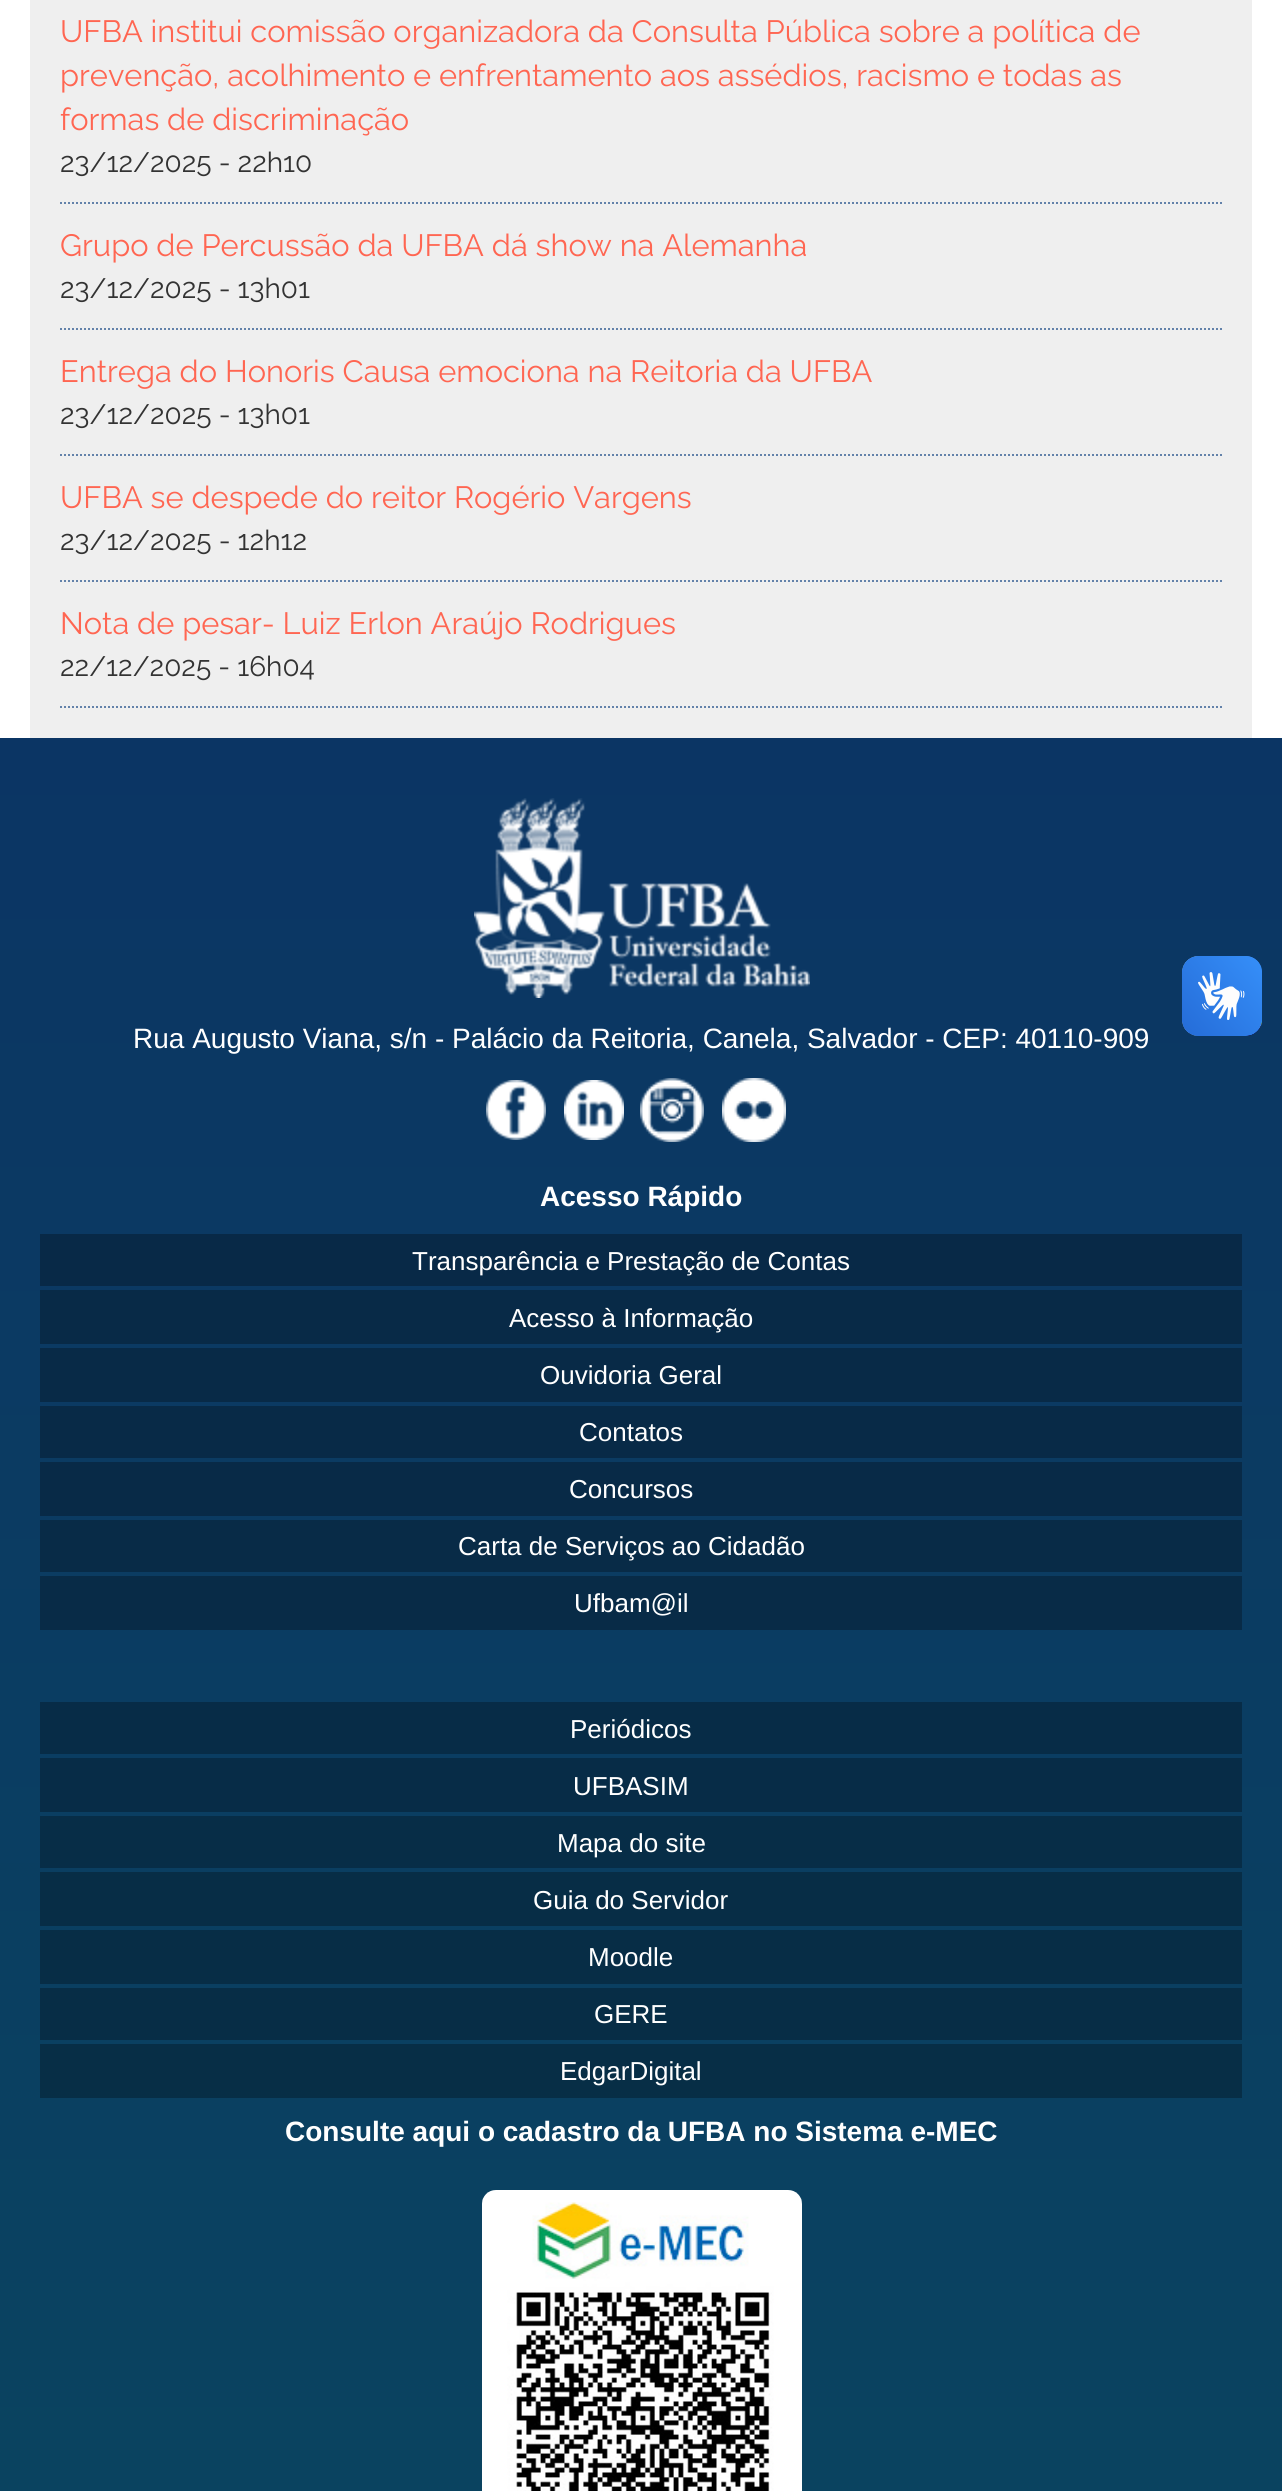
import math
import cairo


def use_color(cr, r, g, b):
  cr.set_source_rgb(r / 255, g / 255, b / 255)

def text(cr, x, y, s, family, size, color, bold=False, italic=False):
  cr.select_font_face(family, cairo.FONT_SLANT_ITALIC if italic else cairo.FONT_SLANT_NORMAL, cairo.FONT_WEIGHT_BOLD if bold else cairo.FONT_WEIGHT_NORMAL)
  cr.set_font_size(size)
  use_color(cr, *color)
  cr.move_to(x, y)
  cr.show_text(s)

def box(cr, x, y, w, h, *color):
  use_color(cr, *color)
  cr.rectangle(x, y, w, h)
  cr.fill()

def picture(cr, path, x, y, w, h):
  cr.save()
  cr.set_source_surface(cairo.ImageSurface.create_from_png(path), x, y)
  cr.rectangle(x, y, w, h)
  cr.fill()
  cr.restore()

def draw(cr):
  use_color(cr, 255, 255, 255)
  cr.paint()
  box(cr, 30, 0, 1222, 738, 239, 239, 239)
  cr.new_path()
  cr.move_to(60, 203)
  cr.line_to(1222, 203)
  use_color(cr, 99, 130, 170)
  cr.set_dash([2, 2])
  cr.stroke()
  cr.new_path()
  cr.move_to(60, 329)
  cr.line_to(1222, 329)
  cr.stroke()
  cr.new_path()
  cr.move_to(60, 455)
  cr.line_to(1222, 455)
  cr.stroke()
  cr.new_path()
  cr.move_to(60, 581)
  cr.line_to(1222, 581)
  cr.stroke()
  cr.new_path()
  cr.move_to(60, 707)
  cr.line_to(1222, 707)
  cr.stroke()
  gradient = cairo.LinearGradient(641, 738, 641, 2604)
  gradient.add_color_stop_rgba(0, 0.043, 0.208, 0.392, 1)
  gradient.add_color_stop_rgba(1, 0.039, 0.267, 0.376, 1)
  cr.set_source(gradient)
  cr.rectangle(0, 738, 1282, 1753)
  cr.fill()
  picture(cr, "img_01.png", 1182, 956, 80, 80)
  picture(cr, "img_02.png", 1182, 956, 80, 80)
  picture(cr, "img_03.png", 474, 798, 336, 200)
  picture(cr, "img_04.png", 486, 1080, 60, 60)
  picture(cr, "img_05.png", 564, 1080, 60, 60)
  picture(cr, "img_06.png", 640, 1078, 64, 64)
  picture(cr, "img_07.png", 722, 1078, 64, 64)
  box(cr, 40, 1234, 1202, 52, 8, 41, 71)
  box(cr, 40, 1290, 1202, 54, 8, 42, 71)
  box(cr, 40, 1348, 1202, 54, 8, 42, 71)
  box(cr, 40, 1406, 1202, 52, 8, 42, 71)
  box(cr, 40, 1462, 1202, 54, 8, 42, 71)
  box(cr, 40, 1520, 1202, 52, 8, 43, 71)
  box(cr, 40, 1576, 1202, 54, 8, 43, 71)
  box(cr, 40, 1702, 1202, 52, 7, 44, 71)
  box(cr, 40, 1758, 1202, 54, 7, 44, 71)
  box(cr, 40, 1816, 1202, 52, 7, 45, 71)
  box(cr, 40, 1872, 1202, 54, 7, 45, 70)
  box(cr, 40, 1930, 1202, 54, 7, 45, 70)
  box(cr, 40, 1988, 1202, 52, 7, 45, 70)
  box(cr, 40, 2044, 1202, 54, 7, 46, 70)
  picture(cr, "img_08.png", 482, 2190, 320, 301)
  text(cr, 60, 42, "UFBA institui comissão organizadora da Consulta Pública sobre a política de", "Raleway", 30.8, (255, 102, 82))
  text(cr, 60, 86, "prevenção, acolhimento e enfrentamento aos assédios, racismo e todas as", "Raleway", 30.8, (255, 102, 82))
  text(cr, 60, 130, "formas de discriminação", "Raleway", 30.8, (255, 102, 82))
  text(cr, 60, 172, "23/12/2025 - 22h10", "Raleway", 28, (51, 51, 51))
  text(cr, 60, 256, "Grupo de Percussão da UFBA dá show na Alemanha", "Raleway", 30.8, (255, 102, 82))
  text(cr, 60, 298, "23/12/2025 - 13h01", "Raleway", 28, (51, 51, 51))
  text(cr, 60, 382, "Entrega do Honoris Causa emociona na Reitoria da UFBA", "Raleway", 30.8, (255, 102, 82))
  text(cr, 60, 424, "23/12/2025 - 13h01", "Raleway", 28, (51, 51, 51))
  text(cr, 60, 508, "UFBA se despede do reitor Rogério Vargens", "Raleway", 30.8, (255, 102, 82))
  text(cr, 60, 550, "23/12/2025 - 12h12", "Raleway", 28, (51, 51, 51))
  text(cr, 60, 634, "Nota de pesar- Luiz Erlon Araújo Rodrigues", "Raleway", 30.8, (255, 102, 82))
  text(cr, 60, 676, "22/12/2025 - 16h04", "Raleway", 28, (51, 51, 51))
  text(cr, 133, 1048, "Rua Augusto Viana, s/n - Palácio da Reitoria, Canela, Salvador - CEP: 40110-909", "Liberation Sans", 28, (255, 255, 255))
  text(cr, 540, 1206, "Acesso Rápido", "Liberation Sans", 28, (255, 255, 255), bold=True)
  text(cr, 412, 1270, "Transparência e Prestação de Contas", "Liberation Sans", 26, (255, 255, 255))
  text(cr, 509, 1327, "Acesso à Informação", "Liberation Sans", 26, (255, 255, 255))
  text(cr, 540, 1384, "Ouvidoria Geral", "Liberation Sans", 26, (255, 255, 255))
  text(cr, 579, 1441, "Contatos", "Liberation Sans", 26, (255, 255, 255))
  text(cr, 569, 1498, "Concursos", "Liberation Sans", 26, (255, 255, 255))
  text(cr, 458, 1555, "Carta de Serviços ao Cidadão", "Liberation Sans", 26, (255, 255, 255))
  text(cr, 574, 1612, "Ufbam@il", "Liberation Sans", 26, (255, 255, 255))
  text(cr, 570, 1738, "Periódicos", "Liberation Sans", 26, (255, 255, 255))
  text(cr, 573, 1795, "UFBASIM", "Liberation Sans", 26, (255, 255, 255))
  text(cr, 557, 1852, "Mapa do site", "Liberation Sans", 26, (255, 255, 255))
  text(cr, 533, 1909, "Guia do Servidor", "Liberation Sans", 26, (255, 255, 255))
  text(cr, 588, 1966, "Moodle", "Liberation Sans", 26, (255, 255, 255))
  text(cr, 594, 2023, "GERE", "Liberation Sans", 26, (255, 255, 255))
  text(cr, 560, 2080, "EdgarDigital", "Liberation Sans", 26, (255, 255, 255))
  text(cr, 285, 2141, "Consulte aqui o cadastro da UFBA no Sistema e-MEC", "Liberation Sans", 28, (255, 255, 255), bold=True)


surface = cairo.ImageSurface(cairo.FORMAT_RGB24, 1282, 2491)
cr = cairo.Context(surface)
options = cairo.FontOptions()
options.set_hint_metrics(cairo.HINT_METRICS_OFF)
options.set_hint_style(cairo.HINT_STYLE_NONE)
cr.set_font_options(options)
cr.set_miter_limit(4)
draw(cr)
surface.write_to_png("out.png")
